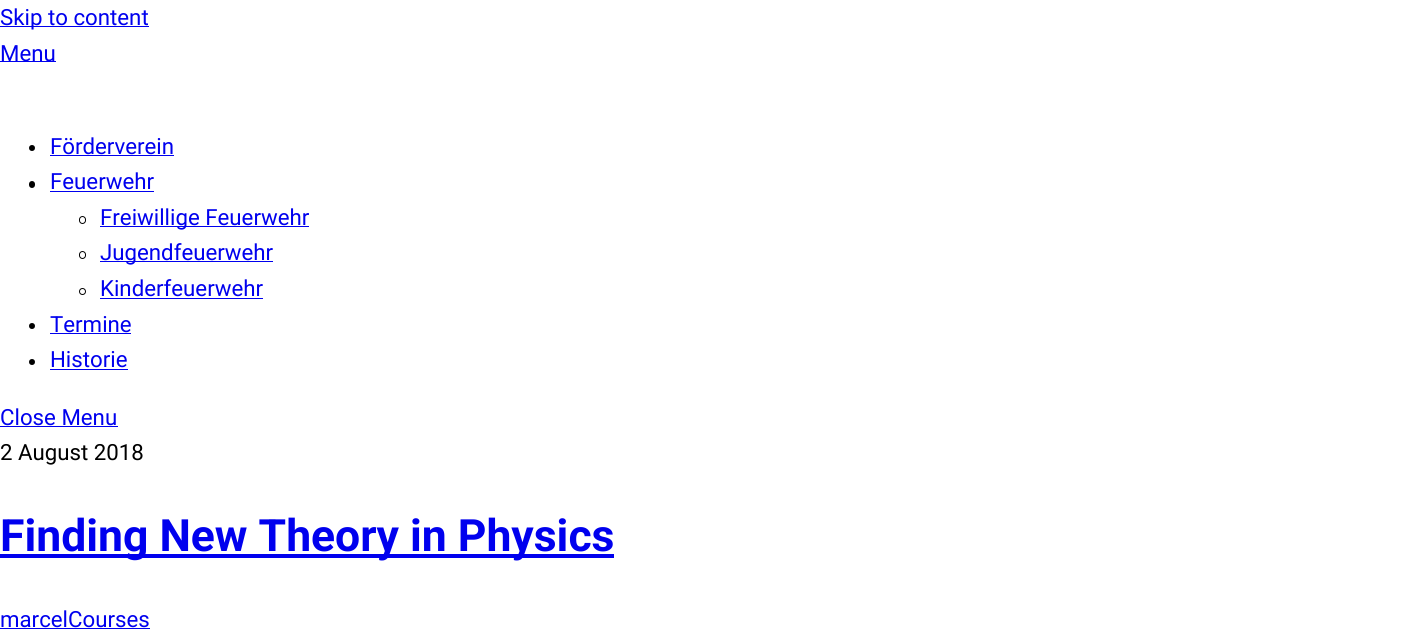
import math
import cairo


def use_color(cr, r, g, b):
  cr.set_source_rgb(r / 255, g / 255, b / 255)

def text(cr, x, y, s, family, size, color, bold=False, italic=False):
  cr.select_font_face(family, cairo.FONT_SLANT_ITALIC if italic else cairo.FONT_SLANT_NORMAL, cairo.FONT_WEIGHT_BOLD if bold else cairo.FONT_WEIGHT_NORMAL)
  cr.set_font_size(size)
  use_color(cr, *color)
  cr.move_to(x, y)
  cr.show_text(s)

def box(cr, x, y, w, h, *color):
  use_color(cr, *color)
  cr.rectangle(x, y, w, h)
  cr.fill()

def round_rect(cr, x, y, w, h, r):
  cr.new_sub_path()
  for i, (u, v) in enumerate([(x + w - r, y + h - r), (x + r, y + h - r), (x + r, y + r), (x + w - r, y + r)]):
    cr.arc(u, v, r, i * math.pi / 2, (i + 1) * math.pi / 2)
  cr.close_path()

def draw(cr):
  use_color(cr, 255, 255, 255)
  cr.paint()
  box(cr, 0, 26, 149, 1, 0, 0, 238)
  box(cr, 0, 61, 56, 1, 0, 0, 238)
  use_color(cr, 0, 0, 0)
  cr.arc(32, 148, 3, 0, 2 * math.pi)
  cr.fill()
  box(cr, 50, 155, 124, 1, 0, 0, 238)
  use_color(cr, 0, 0, 0)
  round_rect(cr, 29, 181, 6, 7, 3)
  cr.fill()
  box(cr, 50, 191, 104, 1, 0, 0, 238)
  round_rect(cr, 79.5, 216.5, 6, 7, 3)
  use_color(cr, 0, 0, 0)
  cr.set_line_width(1)
  cr.stroke()
  box(cr, 100, 226, 209, 1, 0, 0, 238)
  round_rect(cr, 79.5, 251.5, 6, 7, 3)
  use_color(cr, 0, 0, 0)
  cr.stroke()
  box(cr, 100, 261, 173, 1, 0, 0, 238)
  cr.arc(82.5, 291.5, 3, 0, 2 * math.pi)
  use_color(cr, 0, 0, 0)
  cr.stroke()
  box(cr, 100, 298, 163, 1, 0, 0, 238)
  use_color(cr, 0, 0, 0)
  cr.arc(32, 326, 3, 0, 2 * math.pi)
  cr.fill()
  box(cr, 50, 333, 81, 1, 0, 0, 238)
  use_color(cr, 0, 0, 0)
  cr.arc(32, 362, 3, 0, 2 * math.pi)
  cr.fill()
  box(cr, 50, 369, 78, 1, 0, 0, 238)
  box(cr, 0, 426, 118, 1, 0, 0, 238)
  box(cr, 0, 554, 614, 4, 0, 0, 238)
  box(cr, 0, 628, 150, 1, 0, 0, 238)
  text(cr, 0, 25, "Skip to content", "Roboto", 22.25, (0, 0, 238))
  text(cr, 0, 61, "Menu", "Roboto", 22.25, (0, 0, 238))
  text(cr, 50, 154, "Förderverein", "Roboto", 22.25, (0, 0, 238))
  text(cr, 50, 189, "Feuerwehr", "Roboto", 22.25, (0, 0, 238))
  text(cr, 100, 225, "Freiwillige Feuerwehr", "Roboto", 22.25, (0, 0, 238))
  text(cr, 100, 260, "Jugendfeuerwehr", "Roboto", 22.25, (0, 0, 238))
  text(cr, 100, 296, "Kinderfeuerwehr", "Roboto", 22.25, (0, 0, 238))
  text(cr, 50, 332, "Termine", "Roboto", 22.25, (0, 0, 238))
  text(cr, 50, 367, "Historie", "Roboto", 22.25, (0, 0, 238))
  text(cr, 0, 425, "Close Menu", "Roboto", 22.25, (0, 0, 238))
  text(cr, 0, 460, "2 August 2018", "Roboto", 22.25, (0, 0, 0))
  text(cr, 0, 551, "Finding New Theory in Physics", "Roboto", 44.5, (0, 0, 238), bold=True)
  text(cr, 0, 627, "marcelCourses", "Roboto", 22.25, (0, 0, 238))


surface = cairo.ImageSurface(cairo.FORMAT_RGB24, 1407, 641)
cr = cairo.Context(surface)
options = cairo.FontOptions()
options.set_hint_metrics(cairo.HINT_METRICS_OFF)
options.set_hint_style(cairo.HINT_STYLE_NONE)
cr.set_font_options(options)
cr.set_miter_limit(4)
draw(cr)
surface.write_to_png("out.png")
